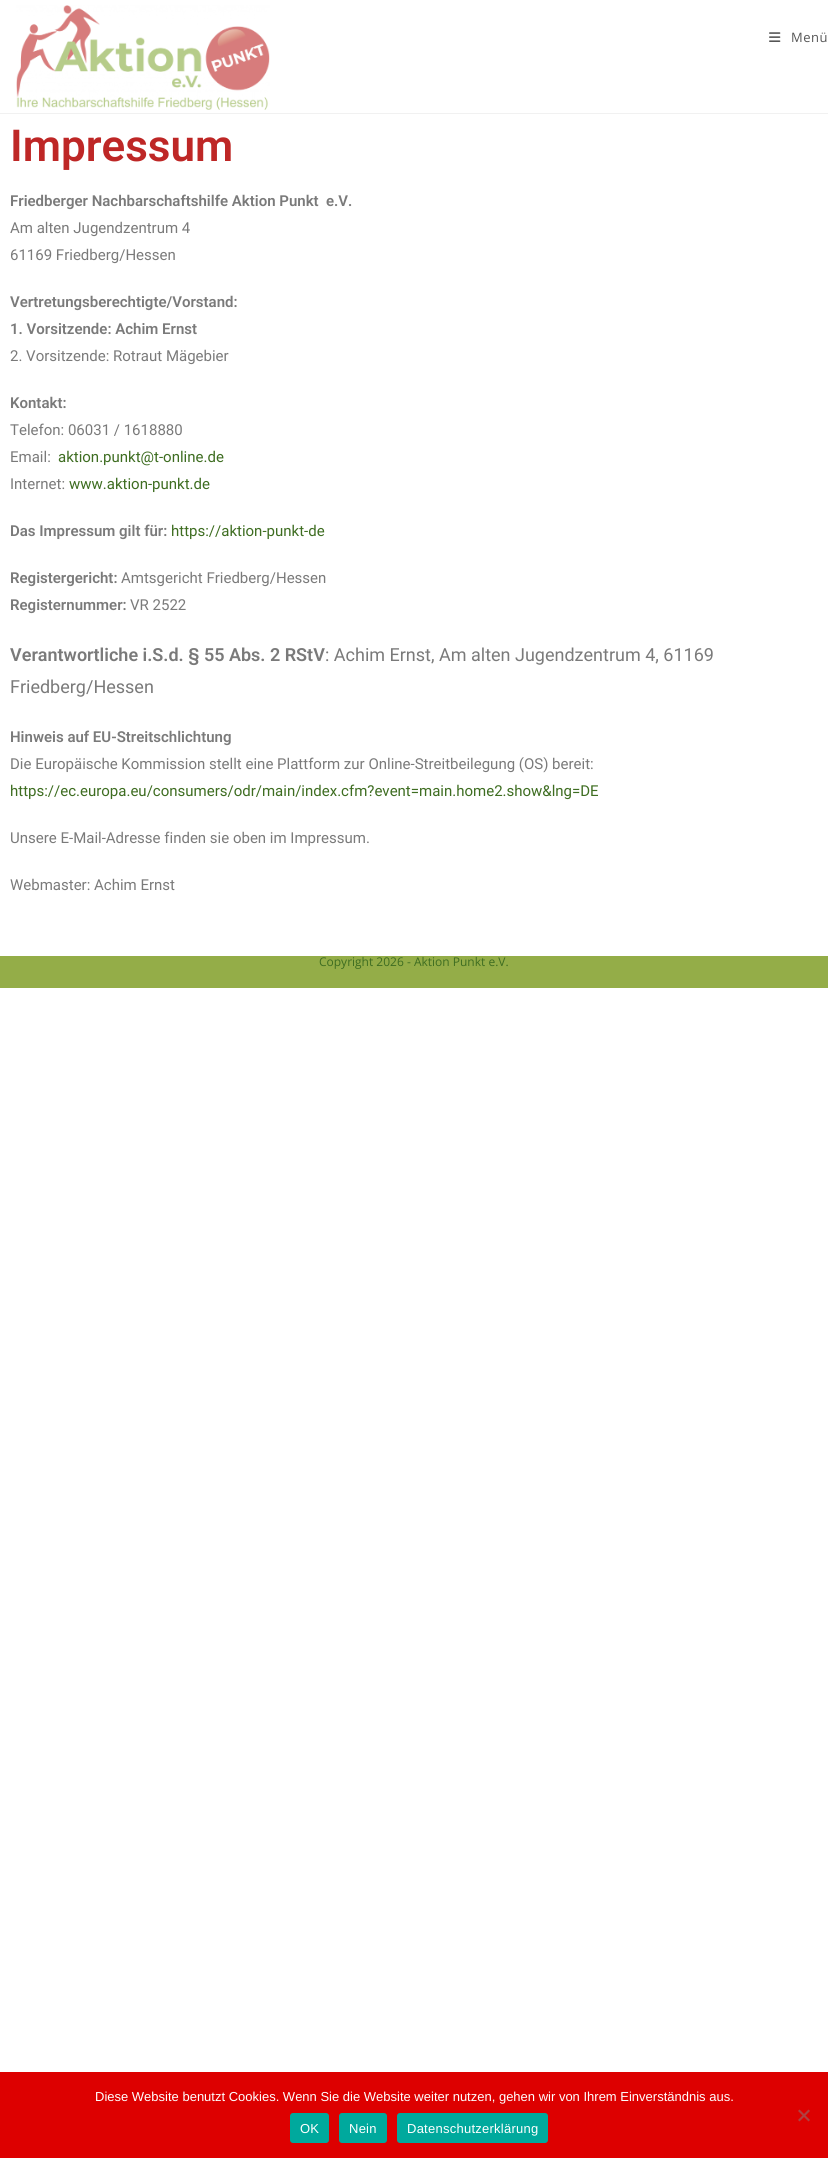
import math
import cairo


def use_color(cr, r, g, b):
  cr.set_source_rgb(r / 255, g / 255, b / 255)

def text(cr, x, y, s, family, size, color, bold=False, italic=False):
  cr.select_font_face(family, cairo.FONT_SLANT_ITALIC if italic else cairo.FONT_SLANT_NORMAL, cairo.FONT_WEIGHT_BOLD if bold else cairo.FONT_WEIGHT_NORMAL)
  cr.set_font_size(size)
  use_color(cr, *color)
  cr.move_to(x, y)
  cr.show_text(s)

def spaced_text(cr, x, y, s, letter, word):
  cr.move_to(x, y)
  for ch in s:
    cr.show_text(ch)
    cr.rel_move_to(letter + word * (ch == ' '), 0)

def box(cr, x, y, w, h, *color):
  use_color(cr, *color)
  cr.rectangle(x, y, w, h)
  cr.fill()

def round_rect(cr, x, y, w, h, r):
  cr.new_sub_path()
  for i, (u, v) in enumerate([(x + w - r, y + h - r), (x + r, y + h - r), (x + r, y + r), (x + w - r, y + r)]):
    cr.arc(u, v, r, i * math.pi / 2, (i + 1) * math.pi / 2)
  cr.close_path()

def picture(cr, path, x, y, w, h):
  cr.save()
  cr.set_source_surface(cairo.ImageSurface.create_from_png(path), x, y)
  cr.rectangle(x, y, w, h)
  cr.fill()
  cr.restore()

def draw(cr):
  use_color(cr, 255, 255, 255)
  cr.paint()
  box(cr, 0, 113, 828, 1, 241, 241, 241)
  picture(cr, "img_01.png", 16, 5, 254, 105)
  picture(cr, "img_02.png", 769, 32, 12, 10)
  box(cr, 0, 956, 828, 32, 148, 173, 72)
  box(cr, 0, 2072, 828, 86, 221, 0, 0)
  use_color(cr, 175, 64, 64)
  cr.new_path()
  cr.move_to(808.5, 2109.5)
  cr.line_to(810, 2111)
  cr.line_to(799.5, 2121.5)
  cr.line_to(798, 2120)
  cr.close_path()
  cr.fill()
  cr.new_path()
  cr.move_to(798, 2111)
  cr.line_to(799.5, 2109.5)
  cr.line_to(810, 2120)
  cr.line_to(808.5, 2121.5)
  cr.close_path()
  cr.fill()
  use_color(cr, 0, 169, 157)
  round_rect(cr, 290, 2113, 39, 30, 3)
  cr.fill()
  round_rect(cr, 339, 2113, 48, 30, 3)
  cr.fill()
  round_rect(cr, 397, 2113, 151, 30, 3)
  cr.fill()
  cr.select_font_face("Open Sans")
  cr.set_font_size(13)
  use_color(cr, 85, 85, 85)
  spaced_text(cr, 791, 42, "Menü", 0.5, 0)
  text(cr, 10, 161, "Impressum", "Roboto SemiBold", 44, (190, 39, 38))
  text(cr, 10, 206, "Friedberger Nachbarschaftshilfe Aktion Punkt  e.V.", "Roboto SemiBold", 15, (122, 122, 122))
  text(cr, 10, 233, "Am alten Jugendzentrum 4", "Roboto", 15, (122, 122, 122))
  text(cr, 10, 260, "61169 Friedberg/Hessen", "Roboto", 15, (122, 122, 122))
  text(cr, 10, 307, "Vertretungsberechtigte/Vorstand:", "Roboto SemiBold", 15, (122, 122, 122))
  text(cr, 10, 334, "1. Vorsitzende: Achim Ernst", "Roboto SemiBold", 15, (122, 122, 122))
  text(cr, 10, 361, "2. Vorsitzende: Rotraut Mägebier", "Roboto", 15, (122, 122, 122))
  text(cr, 10, 408, "Kontakt:", "Roboto SemiBold", 15, (122, 122, 122))
  text(cr, 10, 435, "Telefon: 06031 / 1618880", "Roboto", 15, (122, 122, 122))
  text(cr, 10, 462, "Email:", "Roboto", 15, (122, 122, 122))
  text(cr, 58, 462, "aktion.punkt@t-online.de", "Roboto", 15, (62, 109, 33))
  text(cr, 10, 489, "Internet:", "Roboto", 15, (122, 122, 122))
  text(cr, 69, 489, "www.aktion-punkt.de", "Roboto", 15, (62, 109, 33))
  text(cr, 10, 536, "Das Impressum gilt für:", "Roboto SemiBold", 15, (122, 122, 122))
  text(cr, 171, 536, "https://aktion-punkt-de", "Roboto", 15, (62, 109, 33))
  text(cr, 10, 583, "Registergericht:", "Roboto SemiBold", 15, (122, 122, 122))
  text(cr, 121, 583, "Amtsgericht Friedberg/Hessen", "Roboto", 15, (122, 122, 122))
  text(cr, 10, 610, "Registernummer:", "Roboto SemiBold", 15, (122, 122, 122))
  text(cr, 130, 610, "VR 2522", "Roboto", 15, (122, 122, 122))
  text(cr, 10, 661, "Verantwortliche i.S.d. § 55 Abs. 2 RStV", "Roboto SemiBold", 18, (122, 122, 122))
  text(cr, 325, 661, ": Achim Ernst, Am alten Jugendzentrum 4, 61169", "Roboto", 18, (122, 122, 122))
  text(cr, 10, 693, "Friedberg/Hessen", "Roboto", 18, (122, 122, 122))
  text(cr, 10, 742, "Hinweis auf EU-Streitschlichtung", "Roboto SemiBold", 15, (122, 122, 122))
  text(cr, 10, 769, "Die Europäische Kommission stellt eine Plattform zur Online-Streitbeilegung (OS) bereit:", "Roboto", 15, (122, 122, 122))
  text(cr, 10, 796, "https://ec.europa.eu/consumers/odr/main/index.cfm?event=main.home2.show&lng=DE", "Roboto", 15, (62, 109, 33))
  text(cr, 10, 843, "Unsere E-Mail-Adresse finden sie oben im Impressum.", "Roboto", 15, (122, 122, 122))
  text(cr, 10, 890, "Webmaster: Achim Ernst", "Roboto", 15, (122, 122, 122))
  text(cr, 319, 966, "Copyright 2026 - Aktion Punkt e.V.", "Open Sans", 12, (62, 109, 33))
  text(cr, 95, 2101, "Diese Website benutzt Cookies. Wenn Sie die Website weiter nutzen, gehen wir von Ihrem Einverständnis aus.", "Liberation Sans", 13, (255, 255, 255))
  spaced_text(cr, 300, 2133, "OK", 0.25, 0)
  spaced_text(cr, 349, 2133, "Nein", 0.25, 0)
  spaced_text(cr, 407, 2133, "Datenschutzerklärung", 0.25, 0)


surface = cairo.ImageSurface(cairo.FORMAT_RGB24, 828, 2158)
cr = cairo.Context(surface)
options = cairo.FontOptions()
options.set_hint_metrics(cairo.HINT_METRICS_OFF)
options.set_hint_style(cairo.HINT_STYLE_NONE)
cr.set_font_options(options)
cr.set_miter_limit(4)
draw(cr)
surface.write_to_png("out.png")
